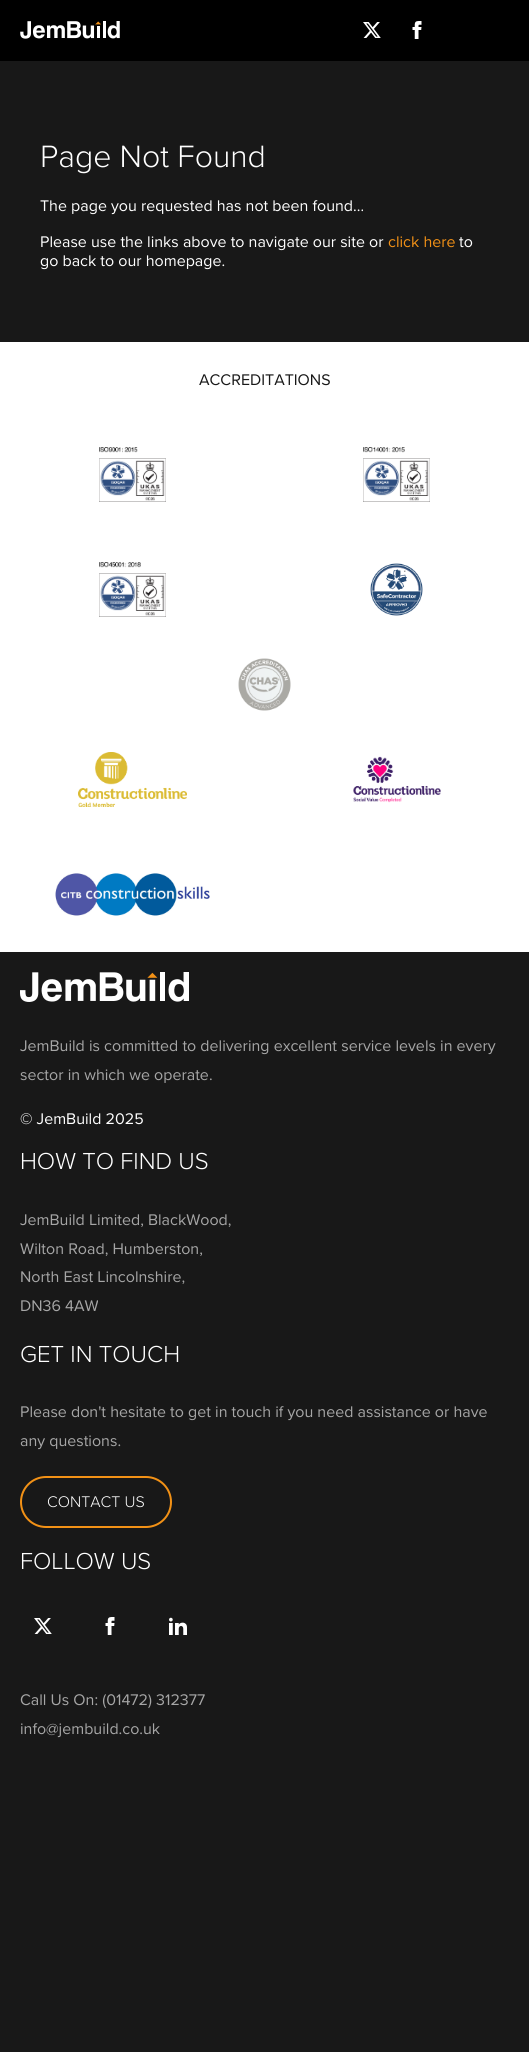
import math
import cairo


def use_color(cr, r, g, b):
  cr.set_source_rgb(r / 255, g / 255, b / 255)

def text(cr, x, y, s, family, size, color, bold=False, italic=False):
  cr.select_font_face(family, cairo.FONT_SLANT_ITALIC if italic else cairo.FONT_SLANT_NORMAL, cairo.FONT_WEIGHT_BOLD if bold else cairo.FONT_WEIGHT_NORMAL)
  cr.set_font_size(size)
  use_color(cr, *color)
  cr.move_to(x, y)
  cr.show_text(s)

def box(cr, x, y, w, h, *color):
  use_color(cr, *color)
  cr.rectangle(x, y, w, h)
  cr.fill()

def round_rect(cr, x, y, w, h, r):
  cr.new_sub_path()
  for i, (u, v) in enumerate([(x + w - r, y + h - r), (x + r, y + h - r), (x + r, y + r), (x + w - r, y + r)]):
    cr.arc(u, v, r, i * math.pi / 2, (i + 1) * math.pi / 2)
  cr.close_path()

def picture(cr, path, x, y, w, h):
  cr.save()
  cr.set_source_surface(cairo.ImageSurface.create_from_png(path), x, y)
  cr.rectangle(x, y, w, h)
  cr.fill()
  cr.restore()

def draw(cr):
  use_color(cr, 24, 24, 24)
  cr.paint()
  box(cr, 0, 0, 529, 61, 0, 0, 0)
  picture(cr, "img_01.png", 20, 21, 100, 18)
  picture(cr, "img_02.png", 363, 22, 18, 16)
  picture(cr, "img_03.png", 412, 21, 10, 18)
  box(cr, 0, 342, 529, 610, 255, 255, 255)
  picture(cr, "img_04.png", 99, 447, 67, 55)
  picture(cr, "img_05.png", 363, 447, 67, 55)
  picture(cr, "img_06.png", 99, 562, 67, 55)
  picture(cr, "img_07.png", 370, 563, 53, 53)
  picture(cr, "img_08.png", 238, 658, 53, 53)
  picture(cr, "img_09.png", 78, 752, 109, 55)
  picture(cr, "img_10.png", 353, 756, 88, 47)
  picture(cr, "img_11.png", 55, 873, 155, 43)
  picture(cr, "img_12.png", 20, 972, 169, 30)
  round_rect(cr, 21, 1477, 150, 50, 25)
  use_color(cr, 242, 145, 22)
  cr.stroke()
  picture(cr, "img_13.png", 34, 1618, 18, 16)
  picture(cr, "img_14.png", 105, 1617, 10, 18)
  picture(cr, "img_15.png", 169, 1617, 18, 18)
  text(cr, 40, 167, "Page Not Found", "Proxima Nova Light", 32, (255, 255, 255))
  text(cr, 40, 211, "The page you requested has not been found...", "Proxima Nova", 16, (255, 255, 255))
  text(cr, 40, 247, "Please use the links above to navigate our site or", "Proxima Nova", 16, (255, 255, 255))
  text(cr, 388, 247, "click here", "Proxima Nova", 16, (242, 145, 22))
  text(cr, 459, 247, "to", "Proxima Nova", 16, (255, 255, 255))
  text(cr, 40, 266, "go back to our homepage.", "Proxima Nova", 16, (255, 255, 255))
  text(cr, 199, 385, "ACCREDITATIONS", "Proxima Nova", 16, (24, 24, 24))
  text(cr, 20, 1051, "JemBuild is committed to delivering excellent service levels in every", "Proxima Nova", 16, (166, 166, 166))
  text(cr, 20, 1080, "sector in which we operate.", "Proxima Nova", 16, (166, 166, 166))
  text(cr, 20, 1124, "© JemBuild 2025", "Proxima Nova", 16, (255, 255, 255))
  text(cr, 20, 1169, "HOW TO FIND US", "Proxima Nova Light", 24, (255, 255, 255))
  text(cr, 20, 1225, "JemBuild Limited, BlackWood,", "Proxima Nova", 16, (166, 166, 166))
  text(cr, 20, 1254, "Wilton Road, Humberston,", "Proxima Nova", 16, (166, 166, 166))
  text(cr, 20, 1282, "North East Lincolnshire,", "Proxima Nova", 16, (166, 166, 166))
  text(cr, 20, 1311, "DN36 4AW", "Proxima Nova", 16, (166, 166, 166))
  text(cr, 20, 1362, "GET IN TOUCH", "Proxima Nova Light", 24, (255, 255, 255))
  text(cr, 20, 1417, "Please don't hesitate to get in touch if you need assistance or have", "Proxima Nova", 16, (166, 166, 166))
  text(cr, 20, 1446, "any questions.", "Proxima Nova", 16, (166, 166, 166))
  text(cr, 47, 1507, "CONTACT US", "Proxima Nova Light", 16, (255, 255, 255))
  text(cr, 20, 1569, "FOLLOW US", "Proxima Nova Light", 24, (255, 255, 255))
  text(cr, 20, 1705, "Call Us On: (01472) 312377", "Proxima Nova", 16, (166, 166, 166))
  text(cr, 20, 1734, "info@jembuild.co.uk", "Proxima Nova", 16, (166, 166, 166))


surface = cairo.ImageSurface(cairo.FORMAT_RGB24, 529, 2052)
cr = cairo.Context(surface)
options = cairo.FontOptions()
options.set_hint_metrics(cairo.HINT_METRICS_OFF)
options.set_hint_style(cairo.HINT_STYLE_NONE)
cr.set_font_options(options)
cr.set_miter_limit(4)
draw(cr)
surface.write_to_png("out.png")
